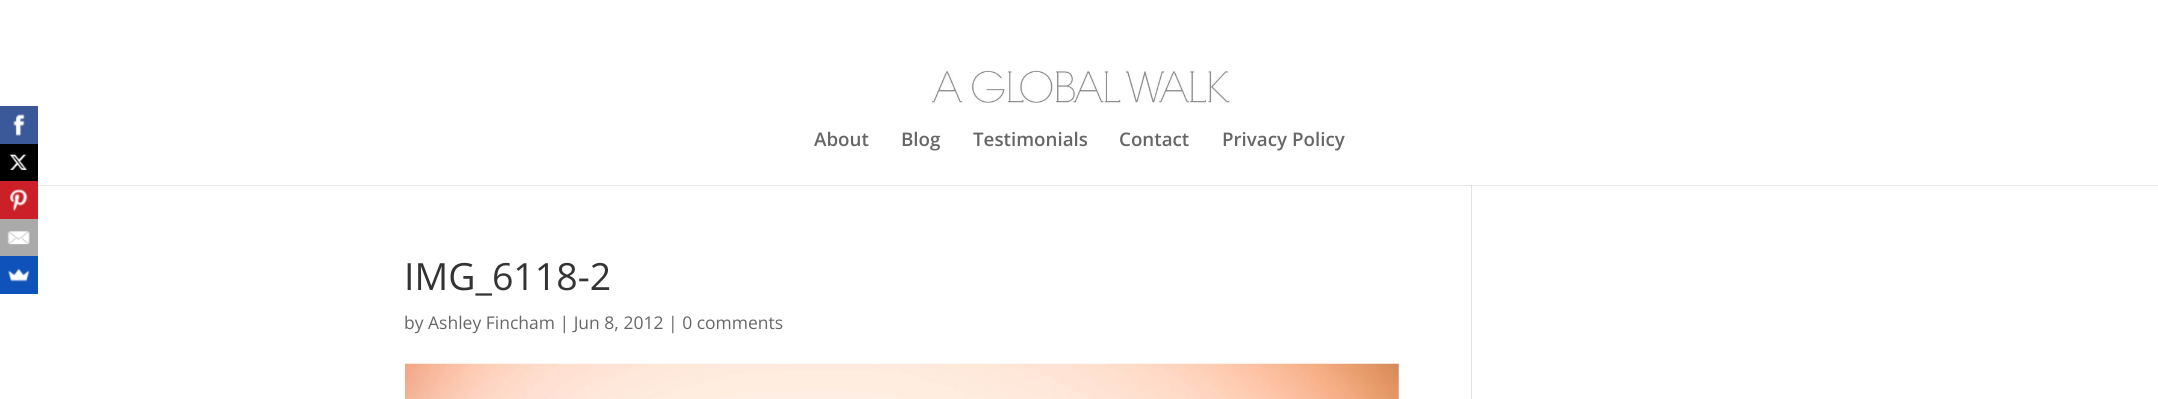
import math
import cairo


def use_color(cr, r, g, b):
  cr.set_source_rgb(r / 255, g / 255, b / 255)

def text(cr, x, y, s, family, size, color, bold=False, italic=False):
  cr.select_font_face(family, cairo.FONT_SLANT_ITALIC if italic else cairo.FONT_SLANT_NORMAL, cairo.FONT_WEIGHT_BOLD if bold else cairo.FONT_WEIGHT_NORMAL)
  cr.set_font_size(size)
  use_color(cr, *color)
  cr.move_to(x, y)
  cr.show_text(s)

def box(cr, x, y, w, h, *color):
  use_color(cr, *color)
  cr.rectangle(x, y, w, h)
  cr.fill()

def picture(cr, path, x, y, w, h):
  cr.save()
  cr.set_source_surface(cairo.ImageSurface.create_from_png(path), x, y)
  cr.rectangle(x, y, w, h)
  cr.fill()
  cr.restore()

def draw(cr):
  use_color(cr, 255, 255, 255)
  cr.paint()
  box(cr, 0, 106, 38, 38, 59, 89, 152)
  picture(cr, "img_01.png", 13, 114, 12, 22)
  box(cr, 0, 144, 38, 37, 0, 0, 0)
  picture(cr, "img_02.png", 9, 154, 19, 16)
  box(cr, 1471, 185, 1, 214, 226, 226, 226)
  cr.set_source_rgba(0, 0, 0, 0.1)
  cr.new_path()
  cr.move_to(0, 185)
  cr.line_to(0, 186)
  cr.line_to(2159, 186)
  cr.line_to(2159, 1)
  cr.line_to(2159, 185)
  cr.close_path()
  cr.fill()
  box(cr, 0, 181, 38, 38, 203, 32, 39)
  picture(cr, "img_03.png", 10, 189, 18, 22)
  box(cr, 0, 219, 38, 37, 170, 170, 170)
  picture(cr, "img_04.png", 7, 231, 23, 14)
  box(cr, 0, 256, 38, 38, 15, 82, 186)
  picture(cr, "img_05.png", 8, 268, 22, 14)
  picture(cr, "img_06.png", 930, 69, 300, 34)
  picture(cr, "img_07.png", 405, 363, 994, 36)
  text(cr, 814, 146, "About", "Open Sans SemiBold", 18.75, (102, 102, 102))
  text(cr, 901, 146, "Blog", "Open Sans SemiBold", 18.75, (102, 102, 102))
  text(cr, 973, 146, "Testimonials", "Open Sans SemiBold", 18.75, (102, 102, 102))
  text(cr, 1119, 146, "Contact", "Open Sans SemiBold", 18.75, (102, 102, 102))
  text(cr, 1222, 146, "Privacy Policy", "Open Sans SemiBold", 18.75, (102, 102, 102))
  text(cr, 404, 290, "IMG_6118-2", "Open Sans", 37.5, (51, 51, 51))
  text(cr, 404, 329, "by Ashley Fincham | Jun 8, 2012 | 0 comments", "Open Sans", 17.5, (102, 102, 102))


surface = cairo.ImageSurface(cairo.FORMAT_RGB24, 2158, 399)
cr = cairo.Context(surface)
options = cairo.FontOptions()
options.set_hint_metrics(cairo.HINT_METRICS_OFF)
options.set_hint_style(cairo.HINT_STYLE_NONE)
cr.set_font_options(options)
cr.set_miter_limit(4)
draw(cr)
surface.write_to_png("out.png")
